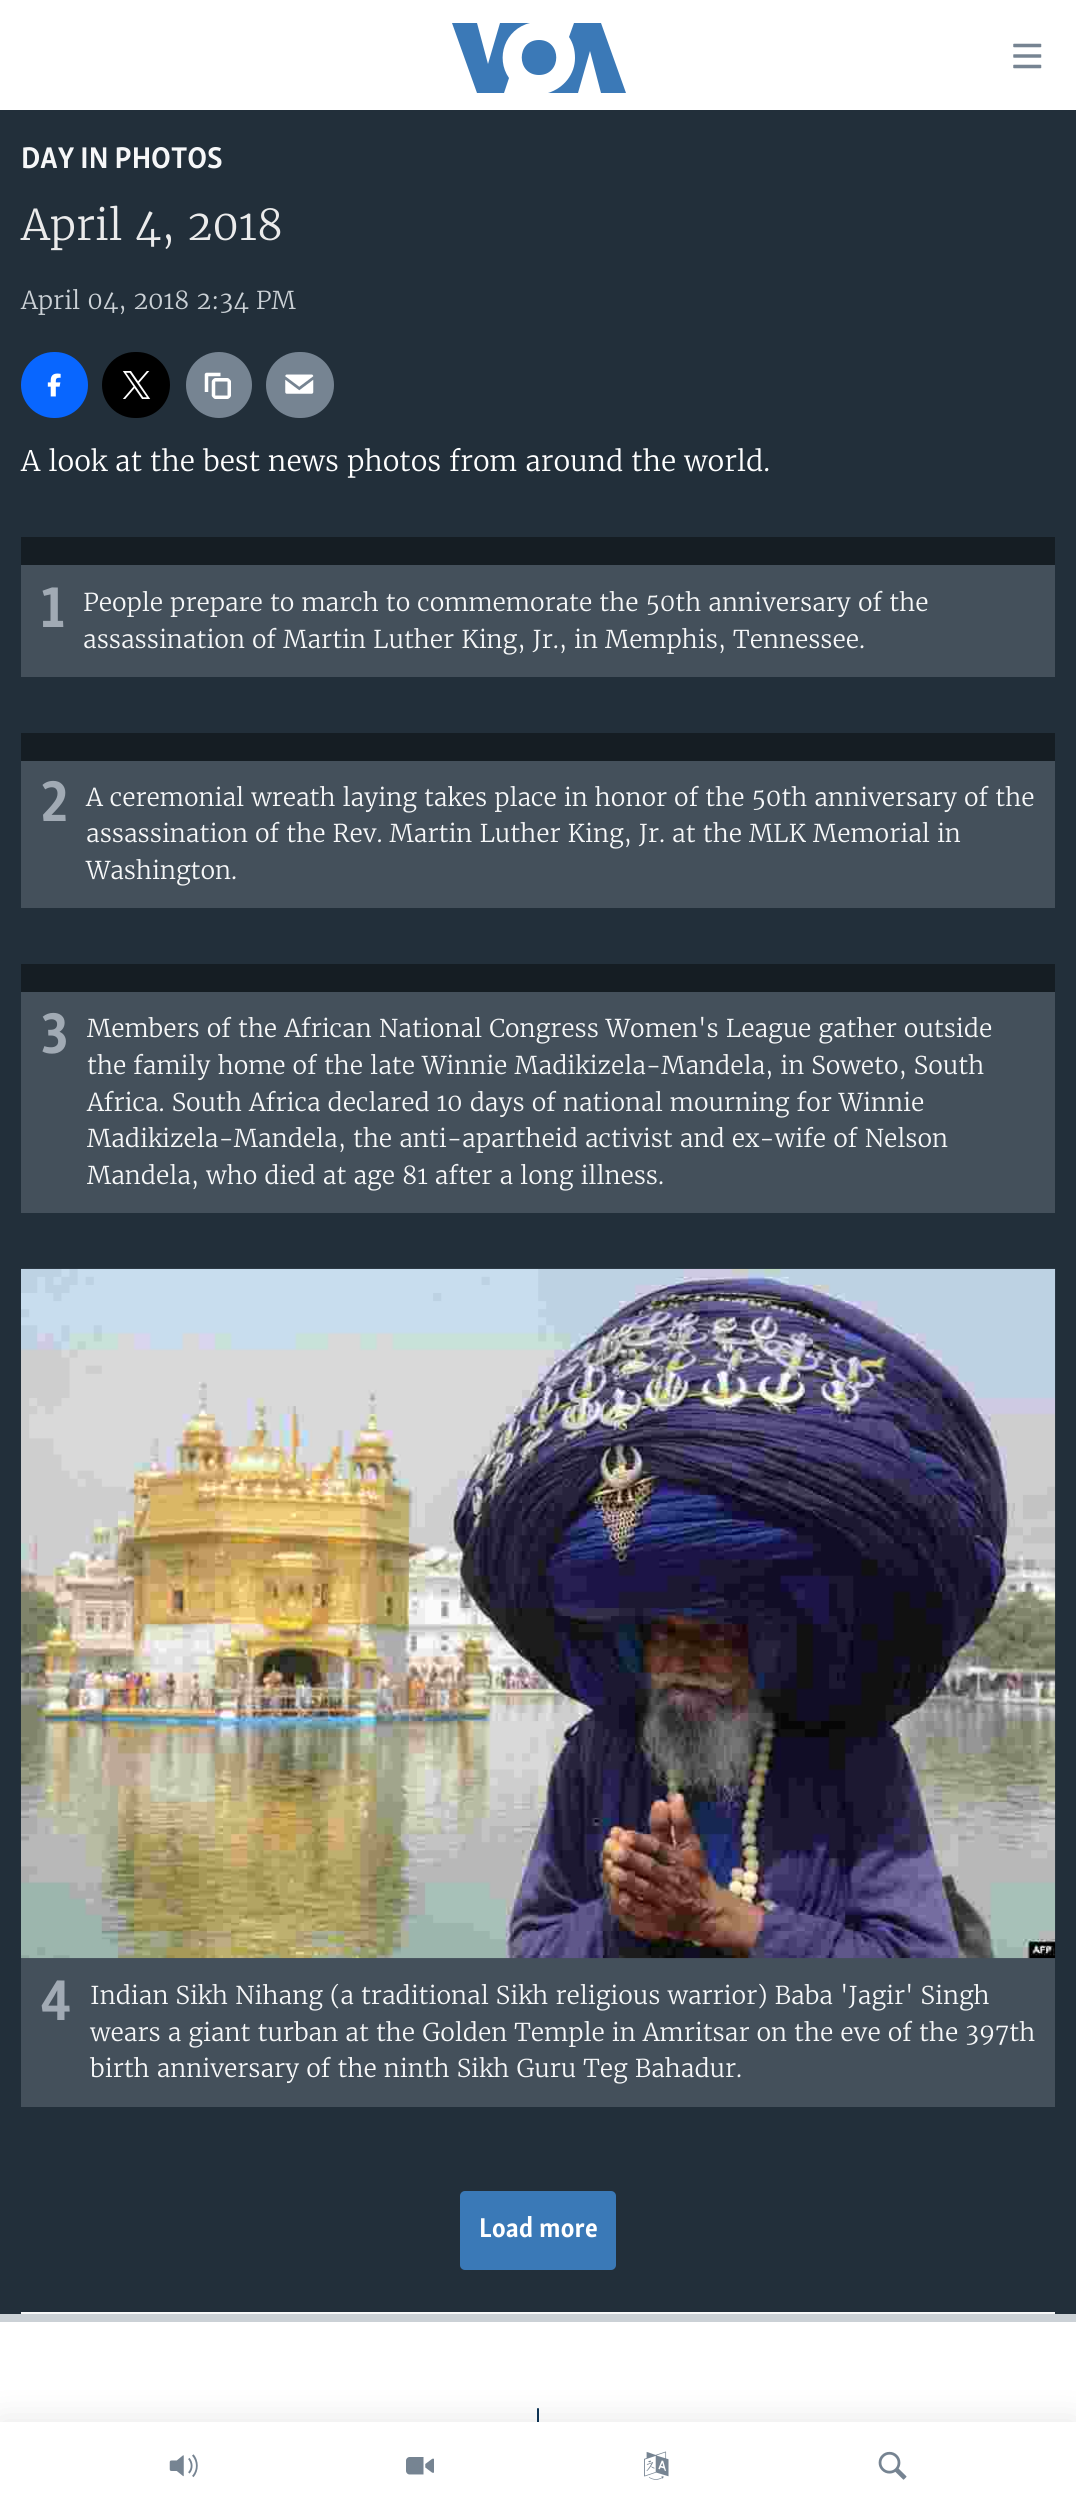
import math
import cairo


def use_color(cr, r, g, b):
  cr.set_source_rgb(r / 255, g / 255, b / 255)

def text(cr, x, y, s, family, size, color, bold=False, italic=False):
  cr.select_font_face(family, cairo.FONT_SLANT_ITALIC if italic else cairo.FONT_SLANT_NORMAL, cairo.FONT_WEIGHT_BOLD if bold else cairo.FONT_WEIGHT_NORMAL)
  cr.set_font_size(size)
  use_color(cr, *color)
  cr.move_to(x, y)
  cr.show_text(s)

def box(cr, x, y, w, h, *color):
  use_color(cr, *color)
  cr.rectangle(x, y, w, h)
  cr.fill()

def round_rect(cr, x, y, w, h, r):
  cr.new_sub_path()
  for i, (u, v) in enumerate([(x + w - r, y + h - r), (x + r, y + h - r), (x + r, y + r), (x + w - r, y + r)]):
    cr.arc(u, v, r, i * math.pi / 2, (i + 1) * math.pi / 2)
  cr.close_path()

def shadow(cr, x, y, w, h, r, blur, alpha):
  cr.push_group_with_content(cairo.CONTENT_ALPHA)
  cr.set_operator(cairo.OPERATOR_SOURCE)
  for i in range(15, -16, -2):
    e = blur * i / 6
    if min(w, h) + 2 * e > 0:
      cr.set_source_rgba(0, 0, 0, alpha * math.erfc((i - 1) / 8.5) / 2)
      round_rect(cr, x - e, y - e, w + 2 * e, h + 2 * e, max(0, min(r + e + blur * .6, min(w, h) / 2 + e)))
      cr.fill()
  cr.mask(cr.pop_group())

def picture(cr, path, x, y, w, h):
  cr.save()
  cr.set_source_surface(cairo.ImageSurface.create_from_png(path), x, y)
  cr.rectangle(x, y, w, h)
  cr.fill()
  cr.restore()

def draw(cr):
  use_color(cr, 255, 255, 255)
  cr.paint()
  use_color(cr, 59, 121, 183)
  cr.new_path()
  cr.move_to(509, 78)
  cr.line_to(504, 93)
  cr.line_to(477, 93)
  cr.line_to(452, 23)
  cr.line_to(477, 23)
  cr.line_to(488, 64)
  cr.line_to(500, 23)
  cr.line_to(530, 23)
  cr.curve_to(505, 29, 495, 58, 509, 78)
  cr.close_path()
  cr.move_to(539, 40)
  cr.curve_to(516, 40, 516, 75, 539, 75)
  cr.curve_to(562, 75, 562, 40, 539, 40)
  cr.close_path()
  cr.move_to(575, 58)
  cr.curve_to(575, 74, 564, 88, 548, 93)
  cr.line_to(578, 93)
  cr.line_to(590, 51)
  cr.line_to(601, 93)
  cr.line_to(626, 93)
  cr.line_to(601, 23)
  cr.line_to(574, 23)
  cr.line_to(569, 37)
  cr.curve_to(573, 43, 575, 50, 575, 58)
  cr.close_path()
  cr.fill()
  picture(cr, "img_01.png", 1013, 43, 29, 26)
  use_color(cr, 13, 52, 86)
  round_rect(cr, 537, 2408, 2, 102, 1)
  cr.fill()
  use_color(cr, 0, 0, 0)
  shadow(cr, 0, 2422, 1076, 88, 0, 17.5, 0.1)
  box(cr, 0, 2422, 1076, 87, 255, 255, 255)
  picture(cr, "img_02.png", 169, 2454, 29, 24)
  picture(cr, "img_03.png", 406, 2457, 28, 18)
  picture(cr, "img_04.png", 644, 2451, 25, 29)
  picture(cr, "img_05.png", 878, 2451, 29, 29)
  box(cr, 0, 110, 1076, 2204, 34, 47, 58)
  box(cr, 0, 2314, 1076, 8, 203, 209, 214)
  use_color(cr, 8, 102, 255)
  round_rect(cr, 21, 352, 67, 66, 33)
  cr.fill()
  picture(cr, "img_06.png", 47, 373, 14, 24)
  use_color(cr, 0, 0, 0)
  round_rect(cr, 102, 352, 68, 66, 33)
  cr.fill()
  picture(cr, "img_07.png", 122, 371, 29, 28)
  use_color(cr, 118, 132, 146)
  cr.arc(219, 385, 33, 0, 2 * math.pi)
  cr.fill()
  picture(cr, "img_08.png", 204, 372, 27, 27)
  round_rect(cr, 266, 352, 68, 66, 33)
  cr.fill()
  picture(cr, "img_09.png", 285, 374, 29, 20)
  box(cr, 21, 537, 1034, 28, 21, 29, 35)
  box(cr, 21, 565, 1034, 112, 68, 80, 91)
  box(cr, 21, 733, 1034, 28, 21, 29, 35)
  box(cr, 21, 761, 1034, 147, 68, 80, 91)
  box(cr, 21, 964, 1034, 28, 21, 29, 35)
  box(cr, 21, 992, 1034, 221, 68, 80, 91)
  box(cr, 21, 1958, 1034, 149, 68, 80, 91)
  picture(cr, "img_10.png", 21, 1268, 1035, 691)
  box(cr, 21, 2312, 1034, 2, 246, 247, 248)
  use_color(cr, 58, 121, 183)
  round_rect(cr, 460, 2191, 156, 79, 5)
  cr.fill()
  text(cr, 21, 168, "DAY IN PHOTOS", "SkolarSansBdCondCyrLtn", 30.75, (246, 247, 248), bold=True)
  text(cr, 21, 240, "April 4, 2018", "Merriweather Light", 42, (235, 235, 235))
  text(cr, 21, 309, "April 04, 2018 2:34 PM", "Merriweather Light", 24.5, (203, 209, 214))
  text(cr, 21, 471, "A look at the best news photos from around the world.", "Merriweather Light", 28, (255, 255, 255))
  text(cr, 40, 627, "1", "SkolarSansBdCondCyrLtn", 59, (161, 170, 180), bold=True)
  text(cr, 83, 611, "People prepare to march to commemorate the 50th anniversary of the", "Merriweather Light", 24.5, (246, 247, 248))
  text(cr, 83, 648, "assassination of Martin Luther King, Jr., in Memphis, Tennessee.", "Merriweather Light", 24.5, (246, 247, 248))
  text(cr, 40, 821, "2", "SkolarSansBdCondCyrLtn", 59, (161, 170, 180), bold=True)
  text(cr, 86, 806, "A ceremonial wreath laying takes place in honor of the 50th anniversary of the", "Merriweather Light", 24.5, (246, 247, 248))
  text(cr, 86, 842, "assassination of the Rev. Martin Luther King, Jr. at the MLK Memorial in", "Merriweather Light", 24.5, (246, 247, 248))
  text(cr, 86, 879, "Washington.", "Merriweather Light", 24.5, (246, 247, 248))
  text(cr, 40, 1053, "3", "SkolarSansBdCondCyrLtn", 59, (161, 170, 180), bold=True)
  text(cr, 87, 1037, "Members of the African National Congress Women's League gather outside", "Merriweather Light", 24.5, (246, 247, 248))
  text(cr, 87, 1074, "the family home of the late Winnie Madikizela-Mandela, in Soweto, South", "Merriweather Light", 24.5, (246, 247, 248))
  text(cr, 87, 1111, "Africa. South Africa declared 10 days of national mourning for Winnie", "Merriweather Light", 24.5, (246, 247, 248))
  text(cr, 87, 1147, "Madikizela-Mandela, the anti-apartheid activist and ex-wife of Nelson", "Merriweather Light", 24.5, (246, 247, 248))
  text(cr, 87, 1184, "Mandela, who died at age 81 after a long illness.", "Merriweather Light", 24.5, (246, 247, 248))
  text(cr, 40, 2020, "4", "SkolarSansBdCondCyrLtn", 59, (161, 170, 180), bold=True)
  text(cr, 90, 2004, "Indian Sikh Nihang (a traditional Sikh religious warrior) Baba 'Jagir' Singh", "Merriweather Light", 24.5, (246, 247, 248))
  text(cr, 90, 2041, "wears a giant turban at the Golden Temple in Amritsar on the eve of the 397th", "Merriweather Light", 24.5, (246, 247, 248))
  text(cr, 90, 2077, "birth anniversary of the ninth Sikh Guru Teg Bahadur.", "Merriweather Light", 24.5, (246, 247, 248))
  text(cr, 479, 2237, "Load more", "SkolarSansBdCondCyrLtn", 28, (255, 255, 255), bold=True)


surface = cairo.ImageSurface(cairo.FORMAT_RGB24, 1076, 2509)
cr = cairo.Context(surface)
options = cairo.FontOptions()
options.set_hint_metrics(cairo.HINT_METRICS_OFF)
options.set_hint_style(cairo.HINT_STYLE_NONE)
cr.set_font_options(options)
cr.set_miter_limit(4)
draw(cr)
surface.write_to_png("out.png")
